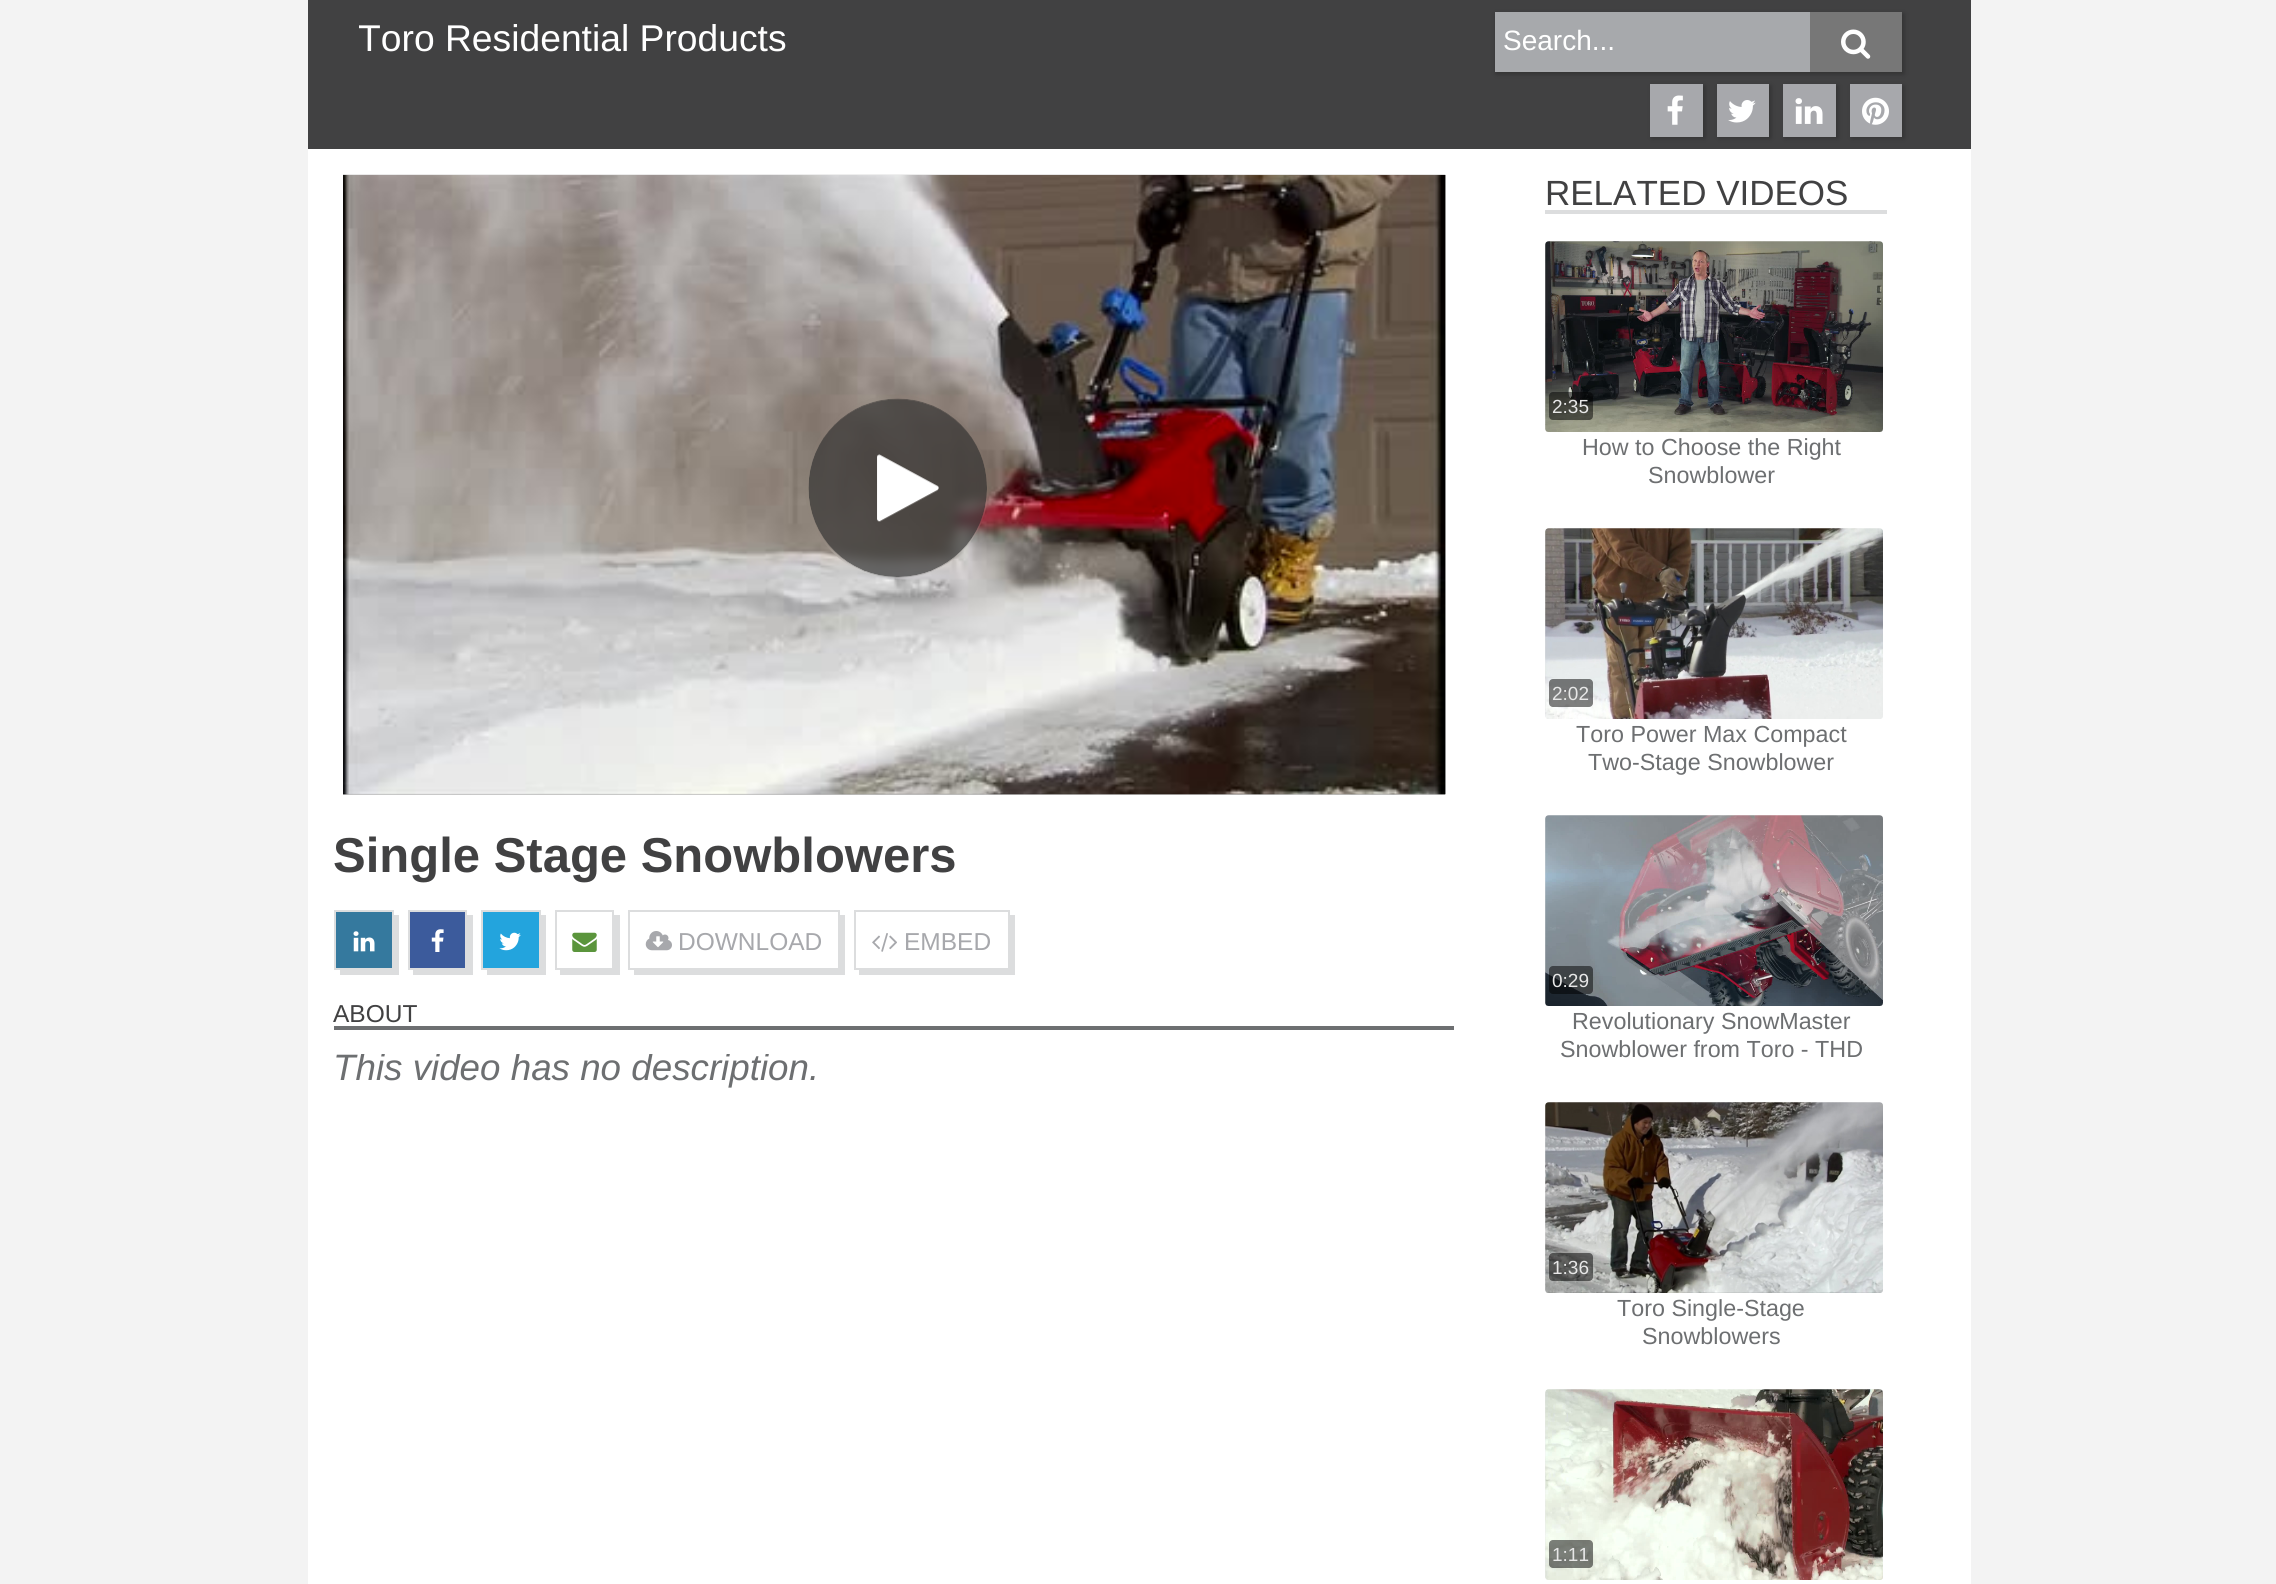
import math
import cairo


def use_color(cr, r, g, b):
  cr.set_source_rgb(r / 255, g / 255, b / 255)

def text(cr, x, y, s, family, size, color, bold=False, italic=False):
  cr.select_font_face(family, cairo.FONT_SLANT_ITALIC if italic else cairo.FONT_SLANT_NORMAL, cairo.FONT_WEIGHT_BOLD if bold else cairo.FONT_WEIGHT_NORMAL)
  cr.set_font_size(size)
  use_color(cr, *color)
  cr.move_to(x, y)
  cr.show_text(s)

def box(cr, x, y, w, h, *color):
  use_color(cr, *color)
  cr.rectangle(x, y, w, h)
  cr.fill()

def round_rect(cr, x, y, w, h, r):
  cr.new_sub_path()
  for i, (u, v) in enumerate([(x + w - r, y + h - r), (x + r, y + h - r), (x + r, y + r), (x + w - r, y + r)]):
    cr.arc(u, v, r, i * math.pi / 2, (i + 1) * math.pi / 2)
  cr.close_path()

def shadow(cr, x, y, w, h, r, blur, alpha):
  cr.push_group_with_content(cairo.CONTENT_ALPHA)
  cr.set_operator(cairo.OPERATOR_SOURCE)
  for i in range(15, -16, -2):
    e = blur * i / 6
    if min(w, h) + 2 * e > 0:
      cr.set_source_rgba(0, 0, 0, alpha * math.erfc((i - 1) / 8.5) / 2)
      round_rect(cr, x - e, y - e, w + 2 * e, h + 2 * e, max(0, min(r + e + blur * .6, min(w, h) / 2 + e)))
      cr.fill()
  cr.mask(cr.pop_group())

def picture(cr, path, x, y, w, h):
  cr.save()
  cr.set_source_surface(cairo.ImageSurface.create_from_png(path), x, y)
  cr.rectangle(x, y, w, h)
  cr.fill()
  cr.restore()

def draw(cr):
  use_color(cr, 243, 243, 243)
  cr.paint()
  box(cr, 308, 0, 1663, 149, 65, 65, 66)
  cr.save()
  cr.set_fill_rule(cairo.FILL_RULE_EVEN_ODD)
  cr.new_path()
  cr.move_to(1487, 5)
  cr.line_to(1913, 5)
  cr.line_to(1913, 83)
  cr.line_to(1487, 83)
  cr.close_path()
  cr.move_to(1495, 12)
  cr.line_to(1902, 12)
  cr.line_to(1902, 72)
  cr.line_to(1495, 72)
  cr.close_path()
  cr.clip()
  use_color(cr, 0, 0, 0)
  shadow(cr, 1496, 14, 408, 60, 0, 2.5, 0.25)
  cr.restore()
  box(cr, 1495, 12, 315, 60, 167, 169, 172)
  cr.set_source_rgba(0.953, 0.953, 0.953, 0.3)
  cr.rectangle(1810, 12, 92, 60)
  cr.fill()
  picture(cr, "img_01.png", 1841, 29, 30, 30)
  use_color(cr, 0, 0, 0)
  shadow(cr, 1652, 86, 53, 52, 0, 2.5, 0.25)
  box(cr, 1650, 84, 53, 53, 167, 168, 172)
  picture(cr, "img_02.png", 1667, 95, 16, 30)
  use_color(cr, 0, 0, 0)
  shadow(cr, 1719, 86, 52, 52, 0, 2.5, 0.25)
  box(cr, 1717, 84, 52, 53, 167, 168, 172)
  picture(cr, "img_03.png", 1728, 100, 28, 23)
  use_color(cr, 0, 0, 0)
  shadow(cr, 1785, 86, 53, 52, 0, 2.5, 0.25)
  box(cr, 1783, 84, 53, 53, 167, 168, 172)
  picture(cr, "img_04.png", 1795, 98, 28, 26)
  use_color(cr, 0, 0, 0)
  shadow(cr, 1852, 86, 52, 52, 0, 2.5, 0.25)
  box(cr, 1850, 84, 52, 53, 167, 168, 172)
  picture(cr, "img_05.png", 1862, 97, 27, 28)
  box(cr, 308, 149, 1663, 1435, 255, 255, 255)
  picture(cr, "img_06.png", 343, 174, 1103, 621)
  use_color(cr, 220, 221, 222)
  cr.new_path()
  cr.move_to(340, 970)
  cr.line_to(340, 975)
  cr.line_to(399, 975)
  cr.line_to(399, 915)
  cr.line_to(394, 915)
  cr.line_to(394, 970)
  cr.close_path()
  cr.fill()
  use_color(cr, 53, 121, 158)
  cr.rectangle(335, 911, 58, 58)
  cr.fill_preserve()
  use_color(cr, 220, 221, 222)
  cr.stroke()
  picture(cr, "img_07.png", 353, 931, 22, 21)
  cr.new_path()
  cr.move_to(413, 970)
  cr.line_to(413, 975)
  cr.line_to(473, 975)
  cr.line_to(473, 915)
  cr.line_to(467, 915)
  cr.line_to(467, 970)
  cr.close_path()
  cr.fill()
  use_color(cr, 60, 91, 156)
  cr.rectangle(409, 911, 57, 58)
  cr.fill_preserve()
  use_color(cr, 220, 221, 222)
  cr.stroke()
  picture(cr, "img_08.png", 431, 929, 13, 23)
  cr.new_path()
  cr.move_to(487, 970)
  cr.line_to(487, 975)
  cr.line_to(546, 975)
  cr.line_to(546, 915)
  cr.line_to(541, 915)
  cr.line_to(541, 970)
  cr.close_path()
  cr.fill()
  use_color(cr, 35, 164, 221)
  cr.rectangle(482, 911, 58, 58)
  cr.fill_preserve()
  use_color(cr, 220, 221, 222)
  cr.stroke()
  picture(cr, "img_09.png", 499, 932, 22, 19)
  cr.new_path()
  cr.move_to(560, 970)
  cr.line_to(560, 975)
  cr.line_to(620, 975)
  cr.line_to(620, 915)
  cr.line_to(614, 915)
  cr.line_to(614, 970)
  cr.close_path()
  cr.fill()
  cr.rectangle(556, 911, 57, 58)
  cr.stroke()
  picture(cr, "img_10.png", 572, 932, 25, 20)
  cr.new_path()
  cr.move_to(634, 970)
  cr.line_to(634, 975)
  cr.line_to(845, 975)
  cr.line_to(845, 915)
  cr.line_to(840, 915)
  cr.line_to(840, 970)
  cr.close_path()
  cr.fill()
  cr.rectangle(629, 911, 210, 58)
  cr.stroke()
  picture(cr, "img_11.png", 645, 931, 27, 20)
  cr.new_path()
  cr.move_to(859, 970)
  cr.line_to(859, 975)
  cr.line_to(1015, 975)
  cr.line_to(1015, 915)
  cr.line_to(1010, 915)
  cr.line_to(1010, 970)
  cr.close_path()
  cr.fill()
  cr.rectangle(855, 911, 154, 58)
  cr.stroke()
  picture(cr, "img_12.png", 872, 933, 25, 19)
  box(cr, 334, 1026, 1120, 4, 109, 111, 113)
  box(cr, 1545, 210, 342, 4, 220, 221, 222)
  round_rect(cr, 1546, 243, 336, 188, 3)
  use_color(cr, 230, 230, 230)
  cr.stroke()
  picture(cr, "img_13.png", 1545, 241, 338, 191)
  cr.set_source_rgba(0, 0, 0, 0.5)
  round_rect(cr, 1549, 392, 44, 28, 4)
  cr.fill()
  round_rect(cr, 1546, 530, 336, 188, 3)
  use_color(cr, 230, 230, 230)
  cr.stroke()
  picture(cr, "img_14.png", 1545, 528, 338, 191)
  cr.set_source_rgba(0, 0, 0, 0.5)
  round_rect(cr, 1549, 679, 44, 28, 4)
  cr.fill()
  round_rect(cr, 1546, 817, 336, 188, 3)
  use_color(cr, 230, 230, 230)
  cr.stroke()
  picture(cr, "img_15.png", 1545, 815, 338, 191)
  cr.set_source_rgba(0, 0, 0, 0.5)
  round_rect(cr, 1549, 966, 44, 28, 4)
  cr.fill()
  round_rect(cr, 1546, 1104, 336, 188, 3)
  use_color(cr, 230, 230, 230)
  cr.stroke()
  picture(cr, "img_16.png", 1545, 1102, 338, 191)
  cr.set_source_rgba(0, 0, 0, 0.5)
  round_rect(cr, 1549, 1253, 44, 28, 4)
  cr.fill()
  round_rect(cr, 1546, 1391, 336, 188, 3)
  use_color(cr, 230, 230, 230)
  cr.stroke()
  picture(cr, "img_17.png", 1545, 1389, 338, 191)
  cr.set_source_rgba(0, 0, 0, 0.5)
  round_rect(cr, 1549, 1540, 44, 28, 4)
  cr.fill()
  cr.save()
  cr.rectangle(359, 12, 429, 63)
  cr.clip()
  text(cr, 358, 51, "Toro Residential Products", "Liberation Sans", 37.25, (255, 255, 255))
  cr.restore()
  text(cr, 1503, 50, "Search...", "Liberation Sans", 28, (255, 255, 255))
  text(cr, 333, 872, "Single Stage Snowblowers", "Liberation Sans", 49, (65, 65, 66), bold=True)
  text(cr, 678, 950, "DOWNLOAD", "Liberation Sans", 24.5, (167, 168, 172))
  text(cr, 904, 950, "EMBED", "Liberation Sans", 24.5, (167, 168, 172))
  text(cr, 333, 1022, "ABOUT", "Liberation Sans", 24.5, (65, 65, 66))
  cr.save()
  cr.rectangle(334, 1054, 1120, 82)
  cr.clip()
  text(cr, 333, 1080, "This video has no description.", "Liberation Sans", 36.75, (109, 111, 113), italic=True)
  cr.restore()
  text(cr, 1545, 205, "RELATED VIDEOS", "Liberation Sans", 35, (65, 65, 66))
  text(cr, 1552, 413, "2:35", "Liberation Sans", 19, (231, 231, 231))
  text(cr, 1582, 455, "How to Choose the Right", "Liberation Sans", 23.3, (109, 111, 113))
  text(cr, 1648, 483, "Snowblower", "Liberation Sans", 23.3, (109, 111, 113))
  text(cr, 1552, 700, "2:02", "Liberation Sans", 19, (231, 231, 231))
  text(cr, 1576, 742, "Toro Power Max Compact", "Liberation Sans", 23.3, (109, 111, 113))
  text(cr, 1588, 770, "Two-Stage Snowblower", "Liberation Sans", 23.3, (109, 111, 113))
  text(cr, 1552, 987, "0:29", "Liberation Sans", 19, (231, 231, 231))
  text(cr, 1572, 1029, "Revolutionary SnowMaster", "Liberation Sans", 23.3, (109, 111, 113))
  text(cr, 1560, 1057, "Snowblower from Toro - THD", "Liberation Sans", 23.3, (109, 111, 113))
  text(cr, 1552, 1274, "1:36", "Liberation Sans", 19, (231, 231, 231))
  text(cr, 1617, 1316, "Toro Single-Stage", "Liberation Sans", 23.3, (109, 111, 113))
  text(cr, 1642, 1344, "Snowblowers", "Liberation Sans", 23.3, (109, 111, 113))
  text(cr, 1552, 1561, "1:11", "Liberation Sans", 19, (231, 231, 231))


surface = cairo.ImageSurface(cairo.FORMAT_RGB24, 2276, 1584)
cr = cairo.Context(surface)
options = cairo.FontOptions()
options.set_hint_metrics(cairo.HINT_METRICS_OFF)
options.set_hint_style(cairo.HINT_STYLE_NONE)
cr.set_font_options(options)
cr.set_miter_limit(4)
draw(cr)
surface.write_to_png("out.png")
